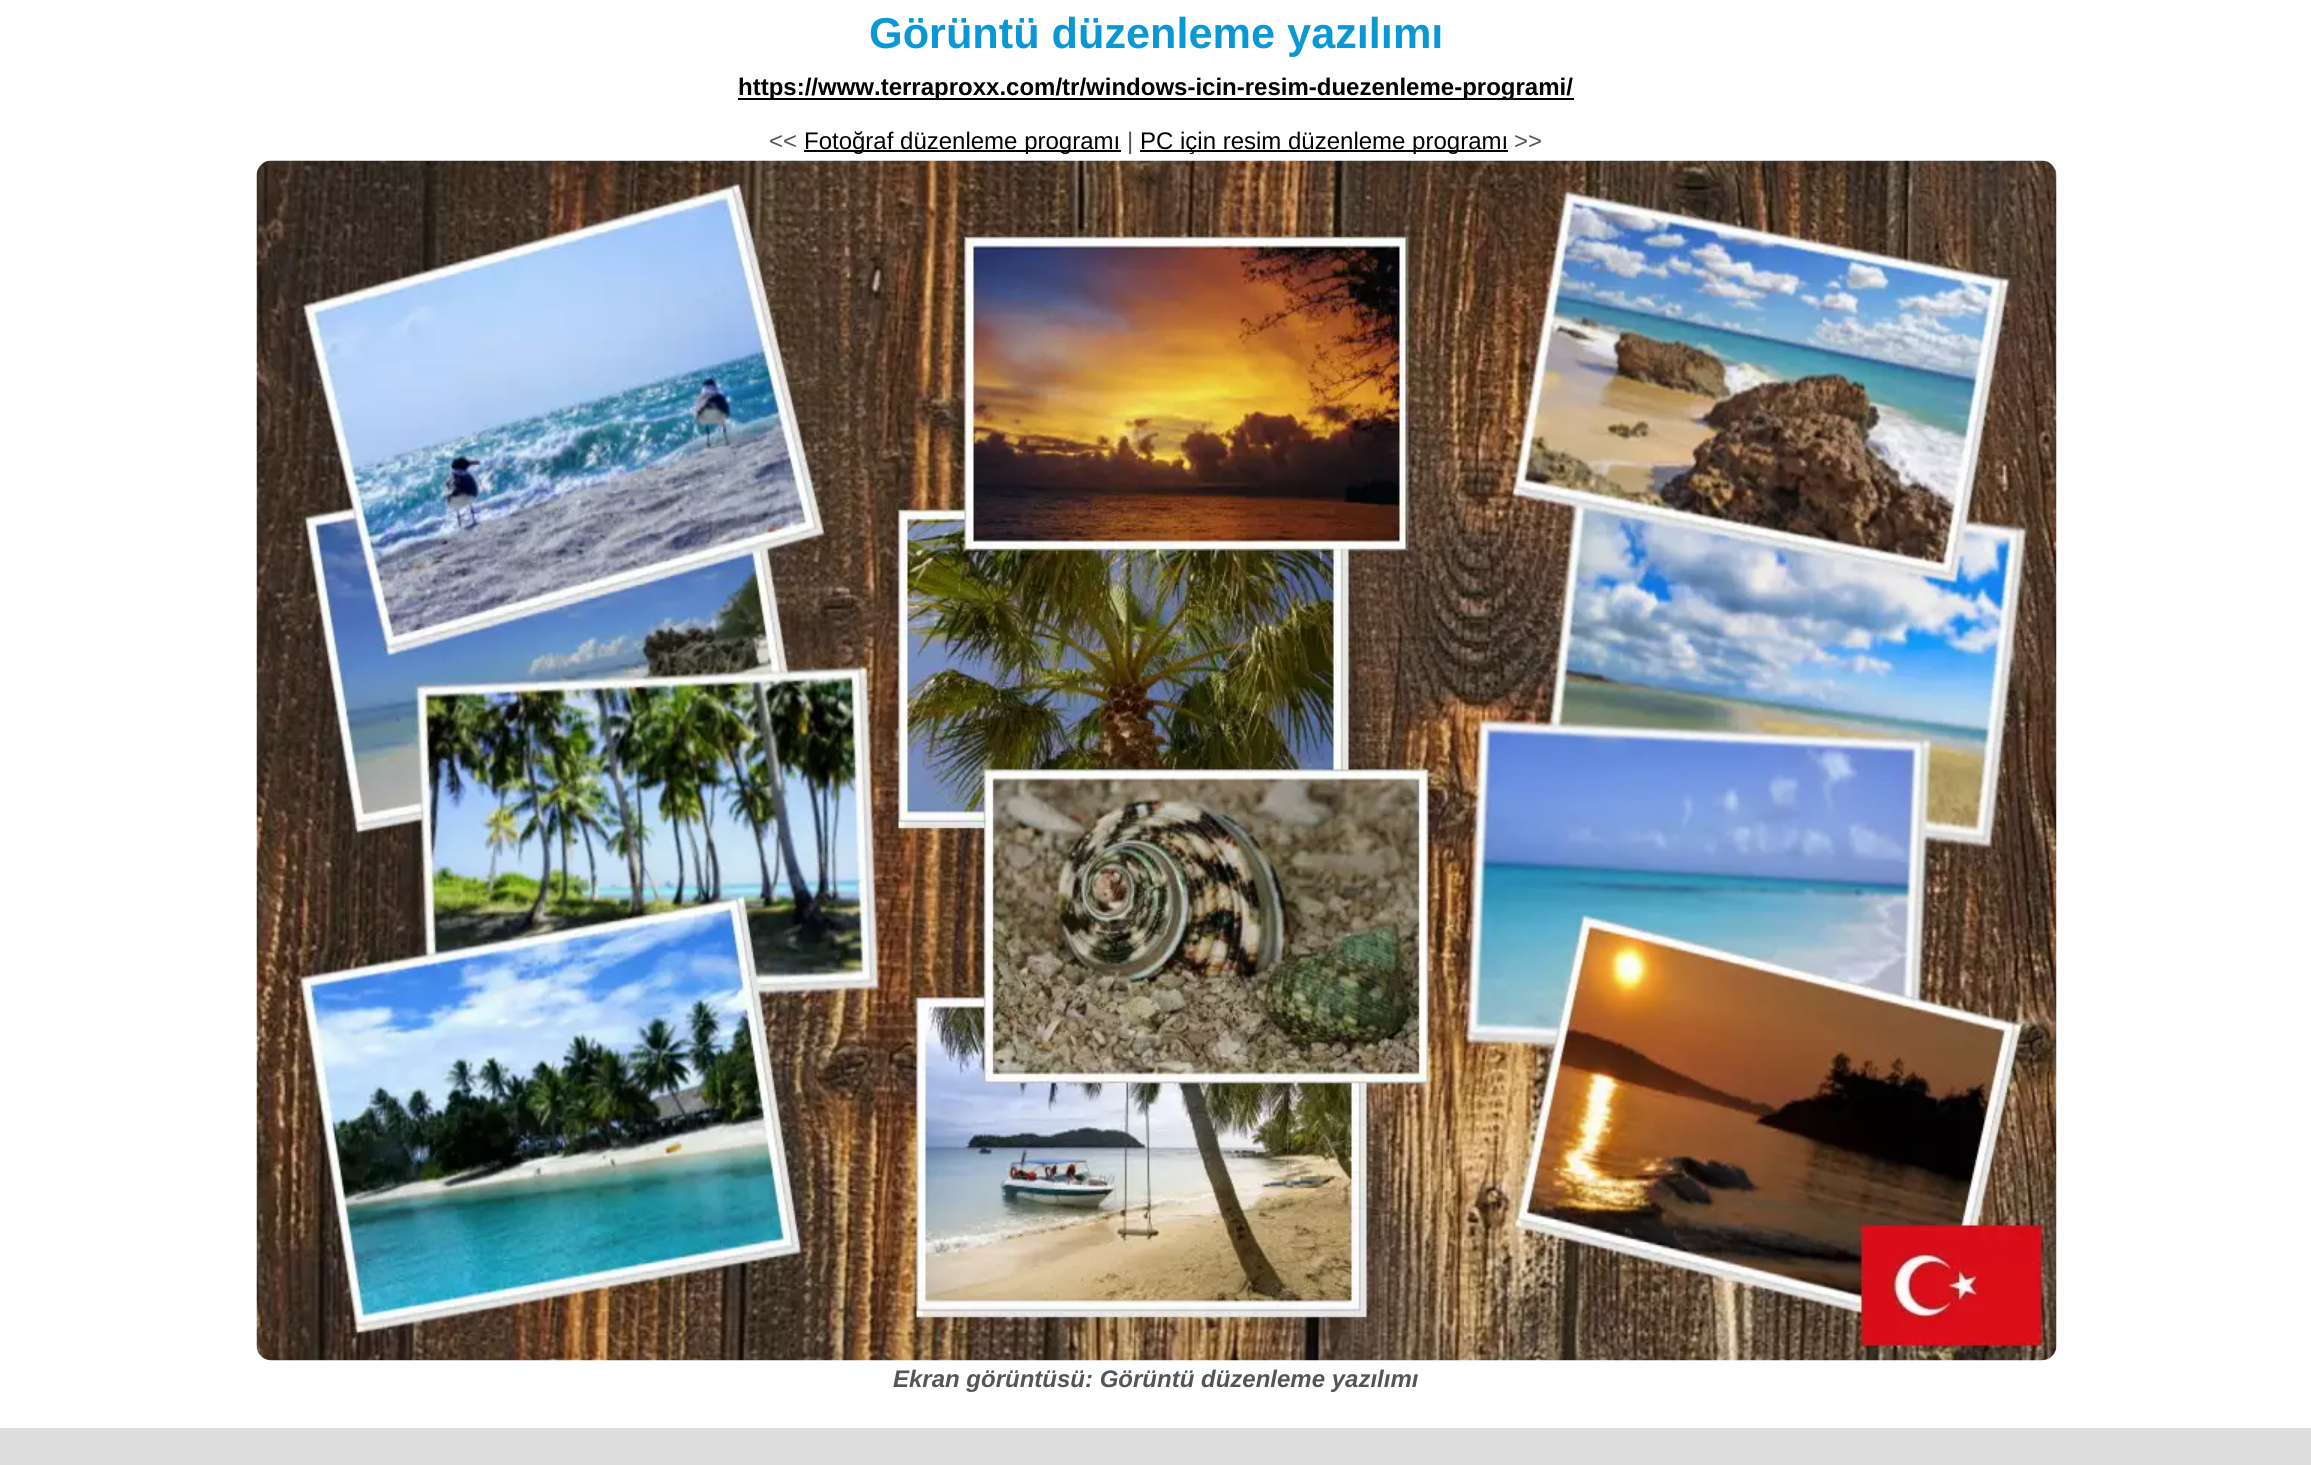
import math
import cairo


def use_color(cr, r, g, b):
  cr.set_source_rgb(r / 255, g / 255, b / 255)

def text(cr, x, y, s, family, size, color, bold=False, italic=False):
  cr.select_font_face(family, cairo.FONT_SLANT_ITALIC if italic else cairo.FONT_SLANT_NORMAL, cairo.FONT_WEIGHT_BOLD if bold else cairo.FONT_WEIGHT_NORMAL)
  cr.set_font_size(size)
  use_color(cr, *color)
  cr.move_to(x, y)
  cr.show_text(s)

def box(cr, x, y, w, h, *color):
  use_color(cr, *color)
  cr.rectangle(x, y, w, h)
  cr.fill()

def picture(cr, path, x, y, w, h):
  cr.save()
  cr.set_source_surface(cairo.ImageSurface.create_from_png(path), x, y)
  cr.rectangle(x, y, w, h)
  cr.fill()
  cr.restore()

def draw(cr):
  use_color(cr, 255, 255, 255)
  cr.paint()
  box(cr, 738, 98, 836, 2, 0, 0, 0)
  box(cr, 804, 150, 317, 2, 0, 0, 0)
  box(cr, 1140, 150, 368, 2, 0, 0, 0)
  picture(cr, "img_01.png", 256, 160, 1801, 1201)
  box(cr, 0, 1428, 2311, 37, 221, 221, 221)
  text(cr, 869, 48, "Görüntü düzenleme yazılımı", "Liberation Sans", 43.25, (10, 152, 213), bold=True)
  text(cr, 738, 95, "https://www.terraproxx.com/tr/windows-icin-resim-duezenleme-programi/", "Liberation Sans", 24, (0, 0, 0), bold=True)
  text(cr, 769, 149, "<<", "Liberation Sans", 24, (85, 85, 85))
  text(cr, 804, 149, "Fotoğraf düzenleme programı", "Liberation Sans", 24, (0, 0, 0))
  text(cr, 1127, 149, "|", "Liberation Sans", 24, (85, 85, 85))
  text(cr, 1140, 149, "PC için resim düzenleme programı", "Liberation Sans", 24, (0, 0, 0))
  text(cr, 1514, 149, ">>", "Liberation Sans", 24, (85, 85, 85))
  text(cr, 893, 1387, "Ekran görüntüsü: Görüntü düzenleme yazılımı", "Liberation Sans", 24, (85, 85, 85), bold=True, italic=True)


surface = cairo.ImageSurface(cairo.FORMAT_RGB24, 2311, 1465)
cr = cairo.Context(surface)
options = cairo.FontOptions()
options.set_hint_metrics(cairo.HINT_METRICS_OFF)
options.set_hint_style(cairo.HINT_STYLE_NONE)
cr.set_font_options(options)
cr.set_miter_limit(4)
draw(cr)
surface.write_to_png("out.png")
